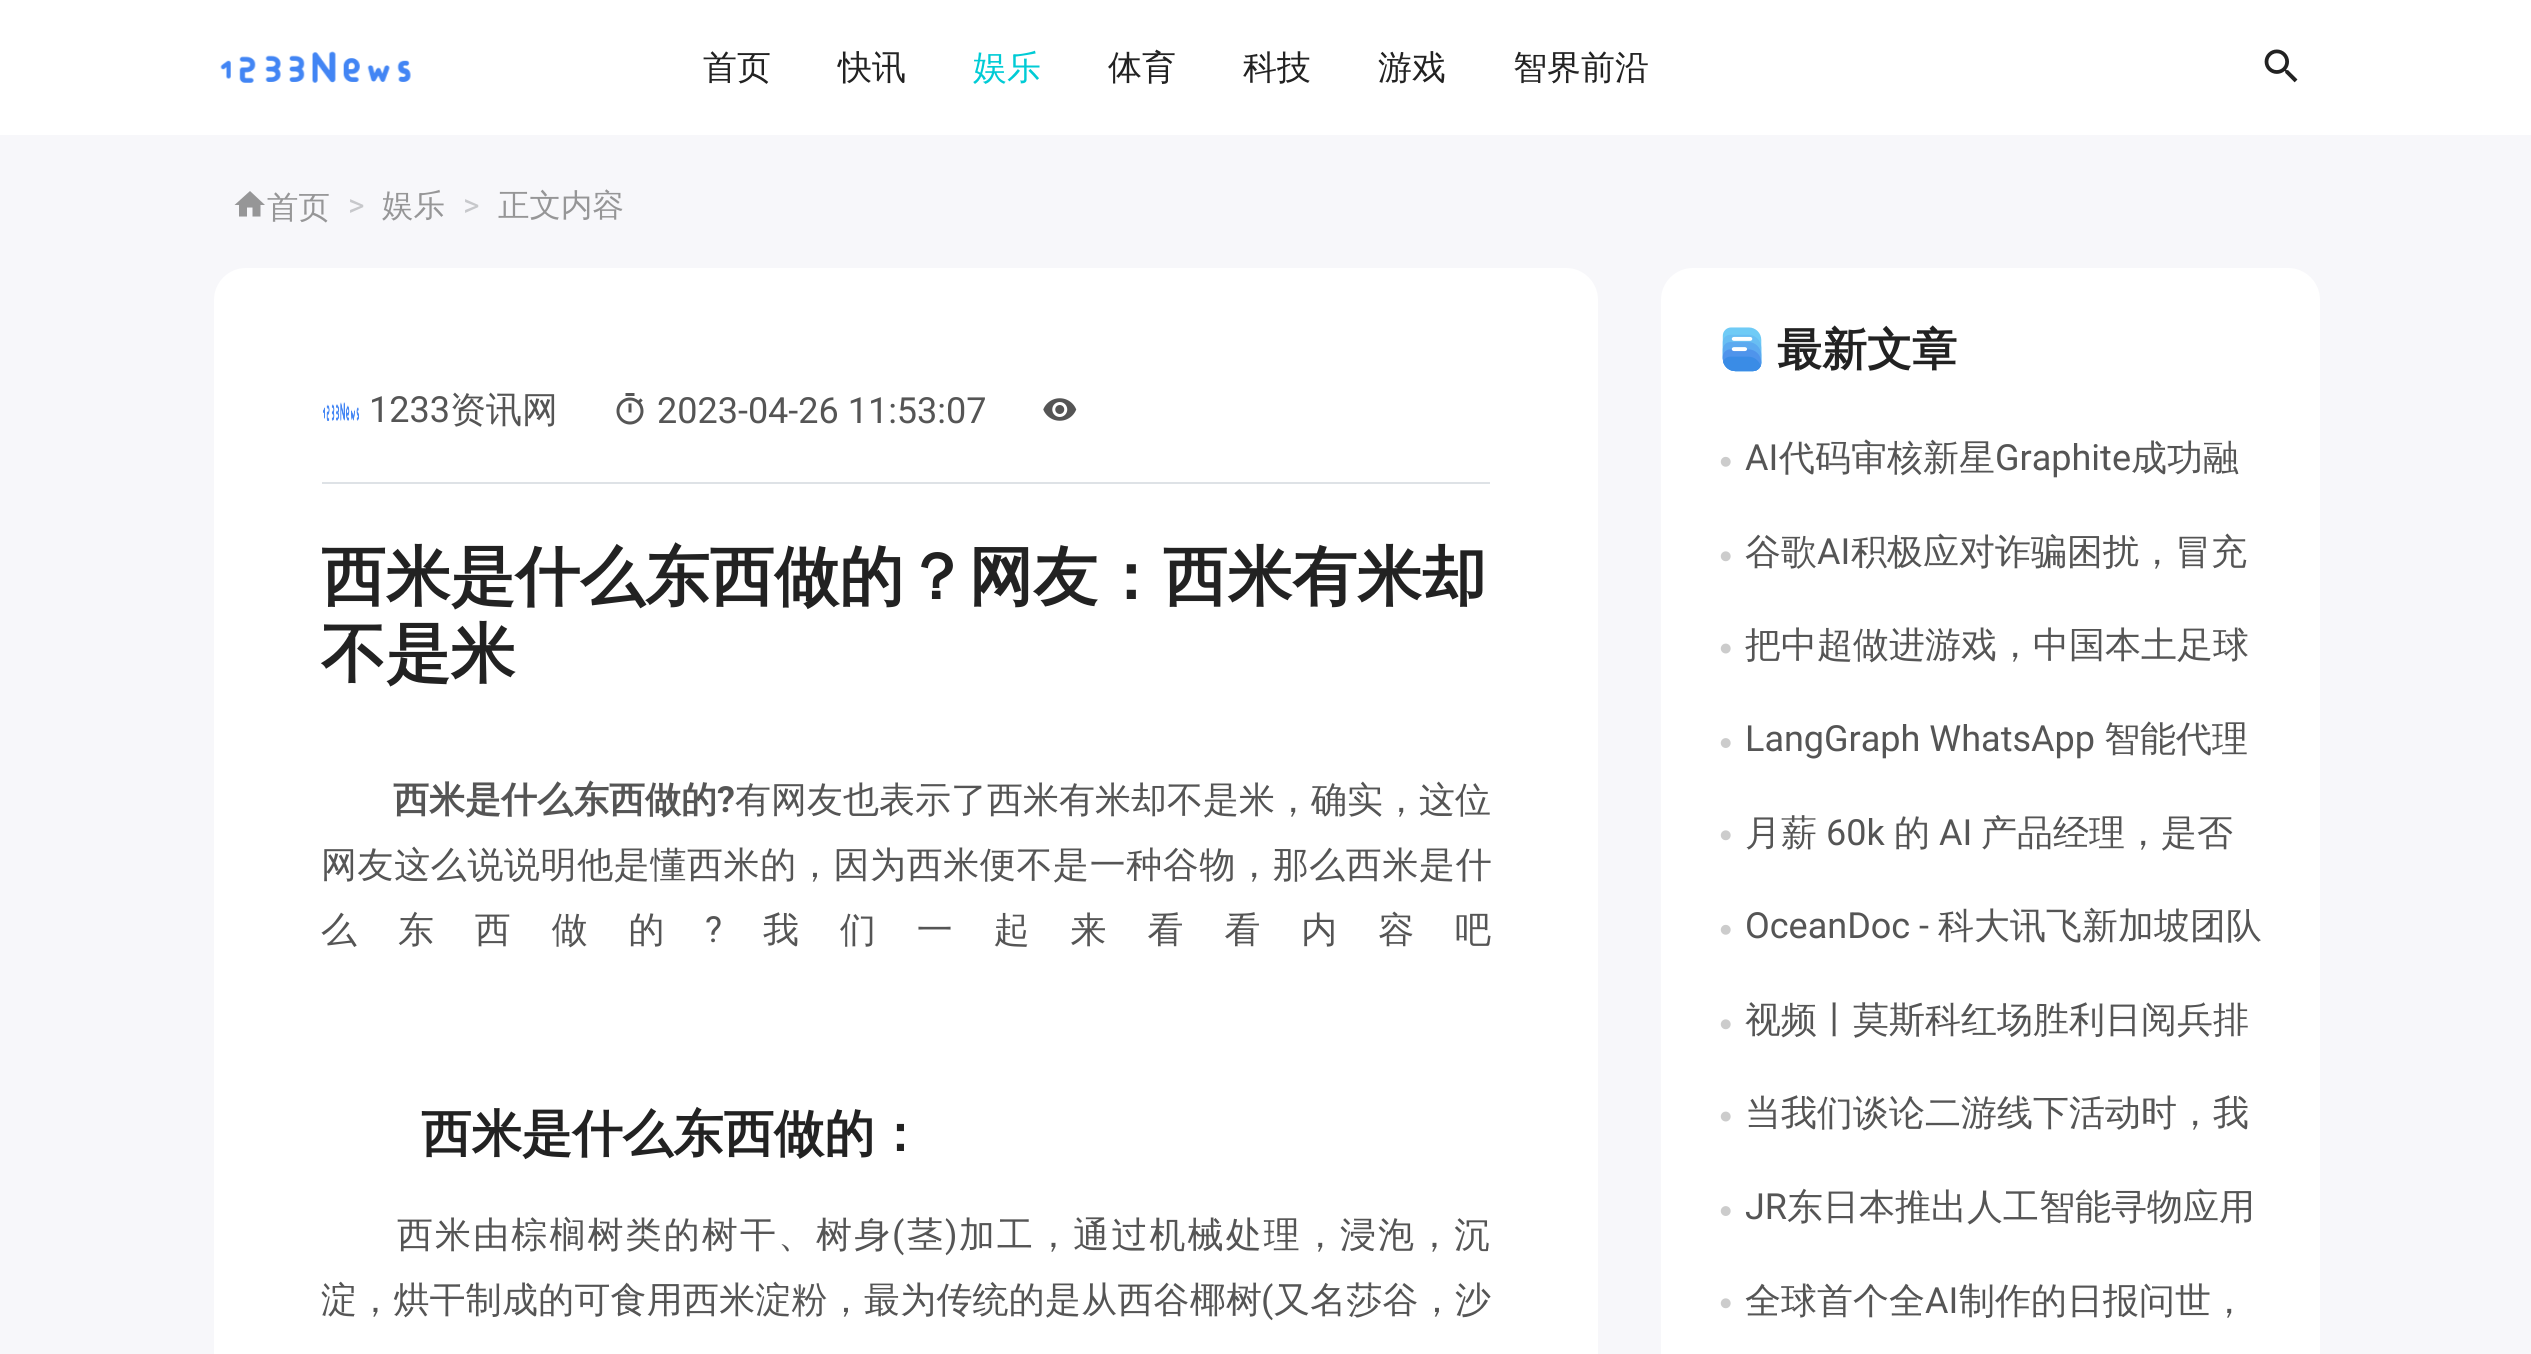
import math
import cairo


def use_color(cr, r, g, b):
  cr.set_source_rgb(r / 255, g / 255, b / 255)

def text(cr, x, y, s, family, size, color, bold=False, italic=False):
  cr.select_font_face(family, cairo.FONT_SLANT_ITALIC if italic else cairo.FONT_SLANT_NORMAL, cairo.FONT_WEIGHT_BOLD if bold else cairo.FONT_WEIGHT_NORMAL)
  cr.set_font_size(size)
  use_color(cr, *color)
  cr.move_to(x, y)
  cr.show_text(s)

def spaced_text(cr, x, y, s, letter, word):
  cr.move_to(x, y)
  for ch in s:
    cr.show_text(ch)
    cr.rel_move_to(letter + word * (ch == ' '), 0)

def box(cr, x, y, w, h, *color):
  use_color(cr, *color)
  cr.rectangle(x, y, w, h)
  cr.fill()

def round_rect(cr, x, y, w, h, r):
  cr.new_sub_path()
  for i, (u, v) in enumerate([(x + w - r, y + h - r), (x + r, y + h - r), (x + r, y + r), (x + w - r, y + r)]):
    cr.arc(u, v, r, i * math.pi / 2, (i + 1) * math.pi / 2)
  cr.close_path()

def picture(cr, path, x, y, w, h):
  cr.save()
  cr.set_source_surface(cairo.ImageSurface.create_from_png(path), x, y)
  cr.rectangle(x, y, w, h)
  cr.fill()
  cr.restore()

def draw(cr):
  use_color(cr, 247, 247, 250)
  cr.paint()
  box(cr, 0, 0, 2531, 135, 255, 255, 255)
  picture(cr, "img_01.png", 220, 51, 191, 32)
  picture(cr, "img_02.png", 2264, 49, 34, 34)
  use_color(cr, 150, 150, 151)
  cr.new_path()
  cr.move_to(247, 216.5)
  cr.line_to(247, 207.5)
  cr.line_to(252.5, 207.5)
  cr.line_to(252.5, 216.5)
  cr.line_to(260.5, 216.5)
  cr.line_to(260.5, 205)
  cr.line_to(265, 205)
  cr.line_to(250, 191)
  cr.line_to(234.5, 205)
  cr.line_to(239, 205)
  cr.line_to(239, 216.5)
  cr.close_path()
  cr.fill()
  use_color(cr, 255, 255, 255)
  round_rect(cr, 214, 268, 1384, 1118, 32)
  cr.fill()
  box(cr, 322, 482, 1168, 2, 222, 226, 230)
  picture(cr, "img_03.png", 323, 402, 36, 19)
  picture(cr, "img_04.png", 616, 393, 28, 32)
  picture(cr, "img_05.png", 1043, 398, 34, 23)
  use_color(cr, 255, 255, 255)
  round_rect(cr, 1661, 268, 659, 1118, 32)
  cr.fill()
  picture(cr, "img_06.png", 1722, 327, 40, 45)
  picture(cr, "img_07.png", 1720, 456, 11, 11)
  picture(cr, "img_08.png", 1720, 551, 11, 11)
  picture(cr, "img_09.png", 1720, 643, 11, 11)
  picture(cr, "img_10.png", 1720, 738, 11, 10)
  picture(cr, "img_08.png", 1720, 830, 11, 11)
  picture(cr, "img_07.png", 1720, 924, 11, 11)
  picture(cr, "img_08.png", 1720, 1019, 11, 11)
  picture(cr, "img_09.png", 1720, 1111, 11, 11)
  picture(cr, "img_10.png", 1720, 1206, 11, 10)
  picture(cr, "img_08.png", 1720, 1298, 11, 11)
  text(cr, 703, 79, "首页", "WenQuanYi Zen Hei Medium", 34, (34, 34, 34))
  text(cr, 838, 79, "快讯", "WenQuanYi Zen Hei Medium", 34, (34, 34, 34))
  text(cr, 973, 79, "娱乐", "WenQuanYi Zen Hei Medium", 34, (0, 203, 213))
  text(cr, 1108, 79, "体育", "WenQuanYi Zen Hei Medium", 34, (34, 34, 34))
  text(cr, 1243, 79, "科技", "WenQuanYi Zen Hei Medium", 34, (34, 34, 34))
  text(cr, 1378, 79, "游戏", "WenQuanYi Zen Hei Medium", 34, (34, 34, 34))
  text(cr, 1513, 79, "智界前沿", "WenQuanYi Zen Hei Medium", 34, (34, 34, 34))
  text(cr, 267, 218, "首页", "WenQuanYi Zen Hei Medium", 31.5, (150, 150, 151))
  text(cr, 348, 216, ">", "Roboto", 31.5, (199, 200, 203))
  text(cr, 382, 216, "娱乐", "WenQuanYi Zen Hei Medium", 31.5, (150, 150, 151))
  text(cr, 463, 216, ">", "Roboto", 31.5, (199, 200, 203))
  text(cr, 498, 216, "正文内容", "WenQuanYi Zen Hei Medium", 31.5, (150, 150, 151))
  text(cr, 369, 422, "1233", "Roboto", 36, (85, 85, 85))
  text(cr, 450, 422, "资讯网", "WenQuanYi Zen Hei Medium", 36, (85, 85, 85))
  text(cr, 657, 423, "2023-04-26 11:53:07", "Roboto", 36, (85, 85, 85))
  text(cr, 321, 599, "西米是什么东西做的？网友：西米有米却", "WenQuanYi Zen Hei", 64.75, (34, 34, 34), bold=True)
  text(cr, 321, 676, "不是米", "WenQuanYi Zen Hei", 64.75, (34, 34, 34), bold=True)
  text(cr, 393, 812, "西米是什么东西做的", "WenQuanYi Zen Hei", 36, (85, 85, 85), bold=True)
  text(cr, 717, 812, "?", "Roboto", 36, (85, 85, 85), bold=True)
  text(cr, 735, 812, "有网友也表示了西米有米却不是米，确实，这位", "WenQuanYi Zen Hei Medium", 36, (85, 85, 85))
  spaced_text(cr, 321, 877, "网友这么说说明他是懂西米的，因为西米便不是一种谷物，那么西米是什", 0.6, 0)
  spaced_text(cr, 321, 942, "么东西做的", 40.9, 0)
  cr.select_font_face("Roboto")
  spaced_text(cr, 705, 942, "?", 40.9, 0)
  cr.select_font_face("WenQuanYi Zen Hei Medium")
  spaced_text(cr, 763, 942, "我们一起来看看内容吧", 40.9, 0)
  text(cr, 421, 1151, "西米是什么东西做的：", "WenQuanYi Zen Hei", 50.4, (34, 34, 34), bold=True)
  cr.select_font_face("WenQuanYi Zen Hei Medium")
  cr.set_font_size(36)
  use_color(cr, 85, 85, 85)
  spaced_text(cr, 397, 1247, "西米由棕榈树类的树干、树身", 2.1, 0)
  cr.select_font_face("Roboto")
  spaced_text(cr, 892, 1247, "(", 2.1, 0)
  cr.select_font_face("WenQuanYi Zen Hei Medium")
  spaced_text(cr, 907, 1247, "茎", 2.1, 0)
  cr.select_font_face("Roboto")
  spaced_text(cr, 945, 1247, ")", 2.1, 0)
  cr.select_font_face("WenQuanYi Zen Hei Medium")
  spaced_text(cr, 959, 1247, "加工，通过机械处理，浸泡，沉", 2.1, 0)
  spaced_text(cr, 321, 1312, "淀，烘干制成的可食用西米淀粉，最为传统的是从西谷椰树", 0.2, 0)
  cr.select_font_face("Roboto")
  spaced_text(cr, 1261, 1312, "(", 0.2, 0)
  cr.select_font_face("WenQuanYi Zen Hei Medium")
  spaced_text(cr, 1274, 1312, "又名莎谷，沙", 0.2, 0)
  text(cr, 1777, 365, "最新文章", "WenQuanYi Zen Hei", 45, (34, 34, 34), bold=True)
  text(cr, 1745, 470, "AI", "Roboto", 36, (85, 85, 85))
  text(cr, 1779, 470, "代码审核新星", "WenQuanYi Zen Hei Medium", 36, (85, 85, 85))
  text(cr, 1995, 470, "Graphite", "Roboto", 36, (85, 85, 85))
  text(cr, 2131, 470, "成功融", "WenQuanYi Zen Hei Medium", 36, (85, 85, 85))
  text(cr, 1745, 564, "谷歌", "WenQuanYi Zen Hei Medium", 36, (85, 85, 85))
  text(cr, 1817, 564, "AI", "Roboto", 36, (85, 85, 85))
  text(cr, 1851, 564, "积极应对诈骗困扰，冒充", "WenQuanYi Zen Hei Medium", 36, (85, 85, 85))
  text(cr, 1745, 657, "把中超做进游戏，中国本土足球", "WenQuanYi Zen Hei Medium", 36, (85, 85, 85))
  text(cr, 1745, 751, "LangGraph WhatsApp", "Roboto", 36, (85, 85, 85))
  text(cr, 2104, 751, "智能代理", "WenQuanYi Zen Hei Medium", 36, (85, 85, 85))
  text(cr, 1745, 845, "月薪", "WenQuanYi Zen Hei Medium", 36, (85, 85, 85))
  text(cr, 1826, 845, "60k", "Roboto", 36, (85, 85, 85))
  text(cr, 1894, 845, "的", "WenQuanYi Zen Hei Medium", 36, (85, 85, 85))
  text(cr, 1939, 845, "AI", "Roboto", 36, (85, 85, 85))
  text(cr, 1981, 845, "产品经理，是否", "WenQuanYi Zen Hei Medium", 36, (85, 85, 85))
  text(cr, 1745, 938, "OceanDoc -", "Roboto", 36, (85, 85, 85))
  text(cr, 1938, 938, "科大讯飞新加坡团队", "WenQuanYi Zen Hei Medium", 36, (85, 85, 85))
  text(cr, 1745, 1032, "视频丨莫斯科红场胜利日阅兵排", "WenQuanYi Zen Hei Medium", 36, (85, 85, 85))
  text(cr, 1745, 1125, "当我们谈论二游线下活动时，我", "WenQuanYi Zen Hei Medium", 36, (85, 85, 85))
  text(cr, 1745, 1219, "JR", "Roboto", 36, (85, 85, 85))
  text(cr, 1787, 1219, "东日本推出人工智能寻物应用", "WenQuanYi Zen Hei Medium", 36, (85, 85, 85))
  text(cr, 1745, 1313, "全球首个全", "WenQuanYi Zen Hei Medium", 36, (85, 85, 85))
  text(cr, 1925, 1313, "AI", "Roboto", 36, (85, 85, 85))
  text(cr, 1959, 1313, "制作的日报问世，", "WenQuanYi Zen Hei Medium", 36, (85, 85, 85))


surface = cairo.ImageSurface(cairo.FORMAT_RGB24, 2531, 1354)
cr = cairo.Context(surface)
options = cairo.FontOptions()
options.set_hint_metrics(cairo.HINT_METRICS_OFF)
options.set_hint_style(cairo.HINT_STYLE_NONE)
cr.set_font_options(options)
cr.set_miter_limit(4)
draw(cr)
surface.write_to_png("out.png")
